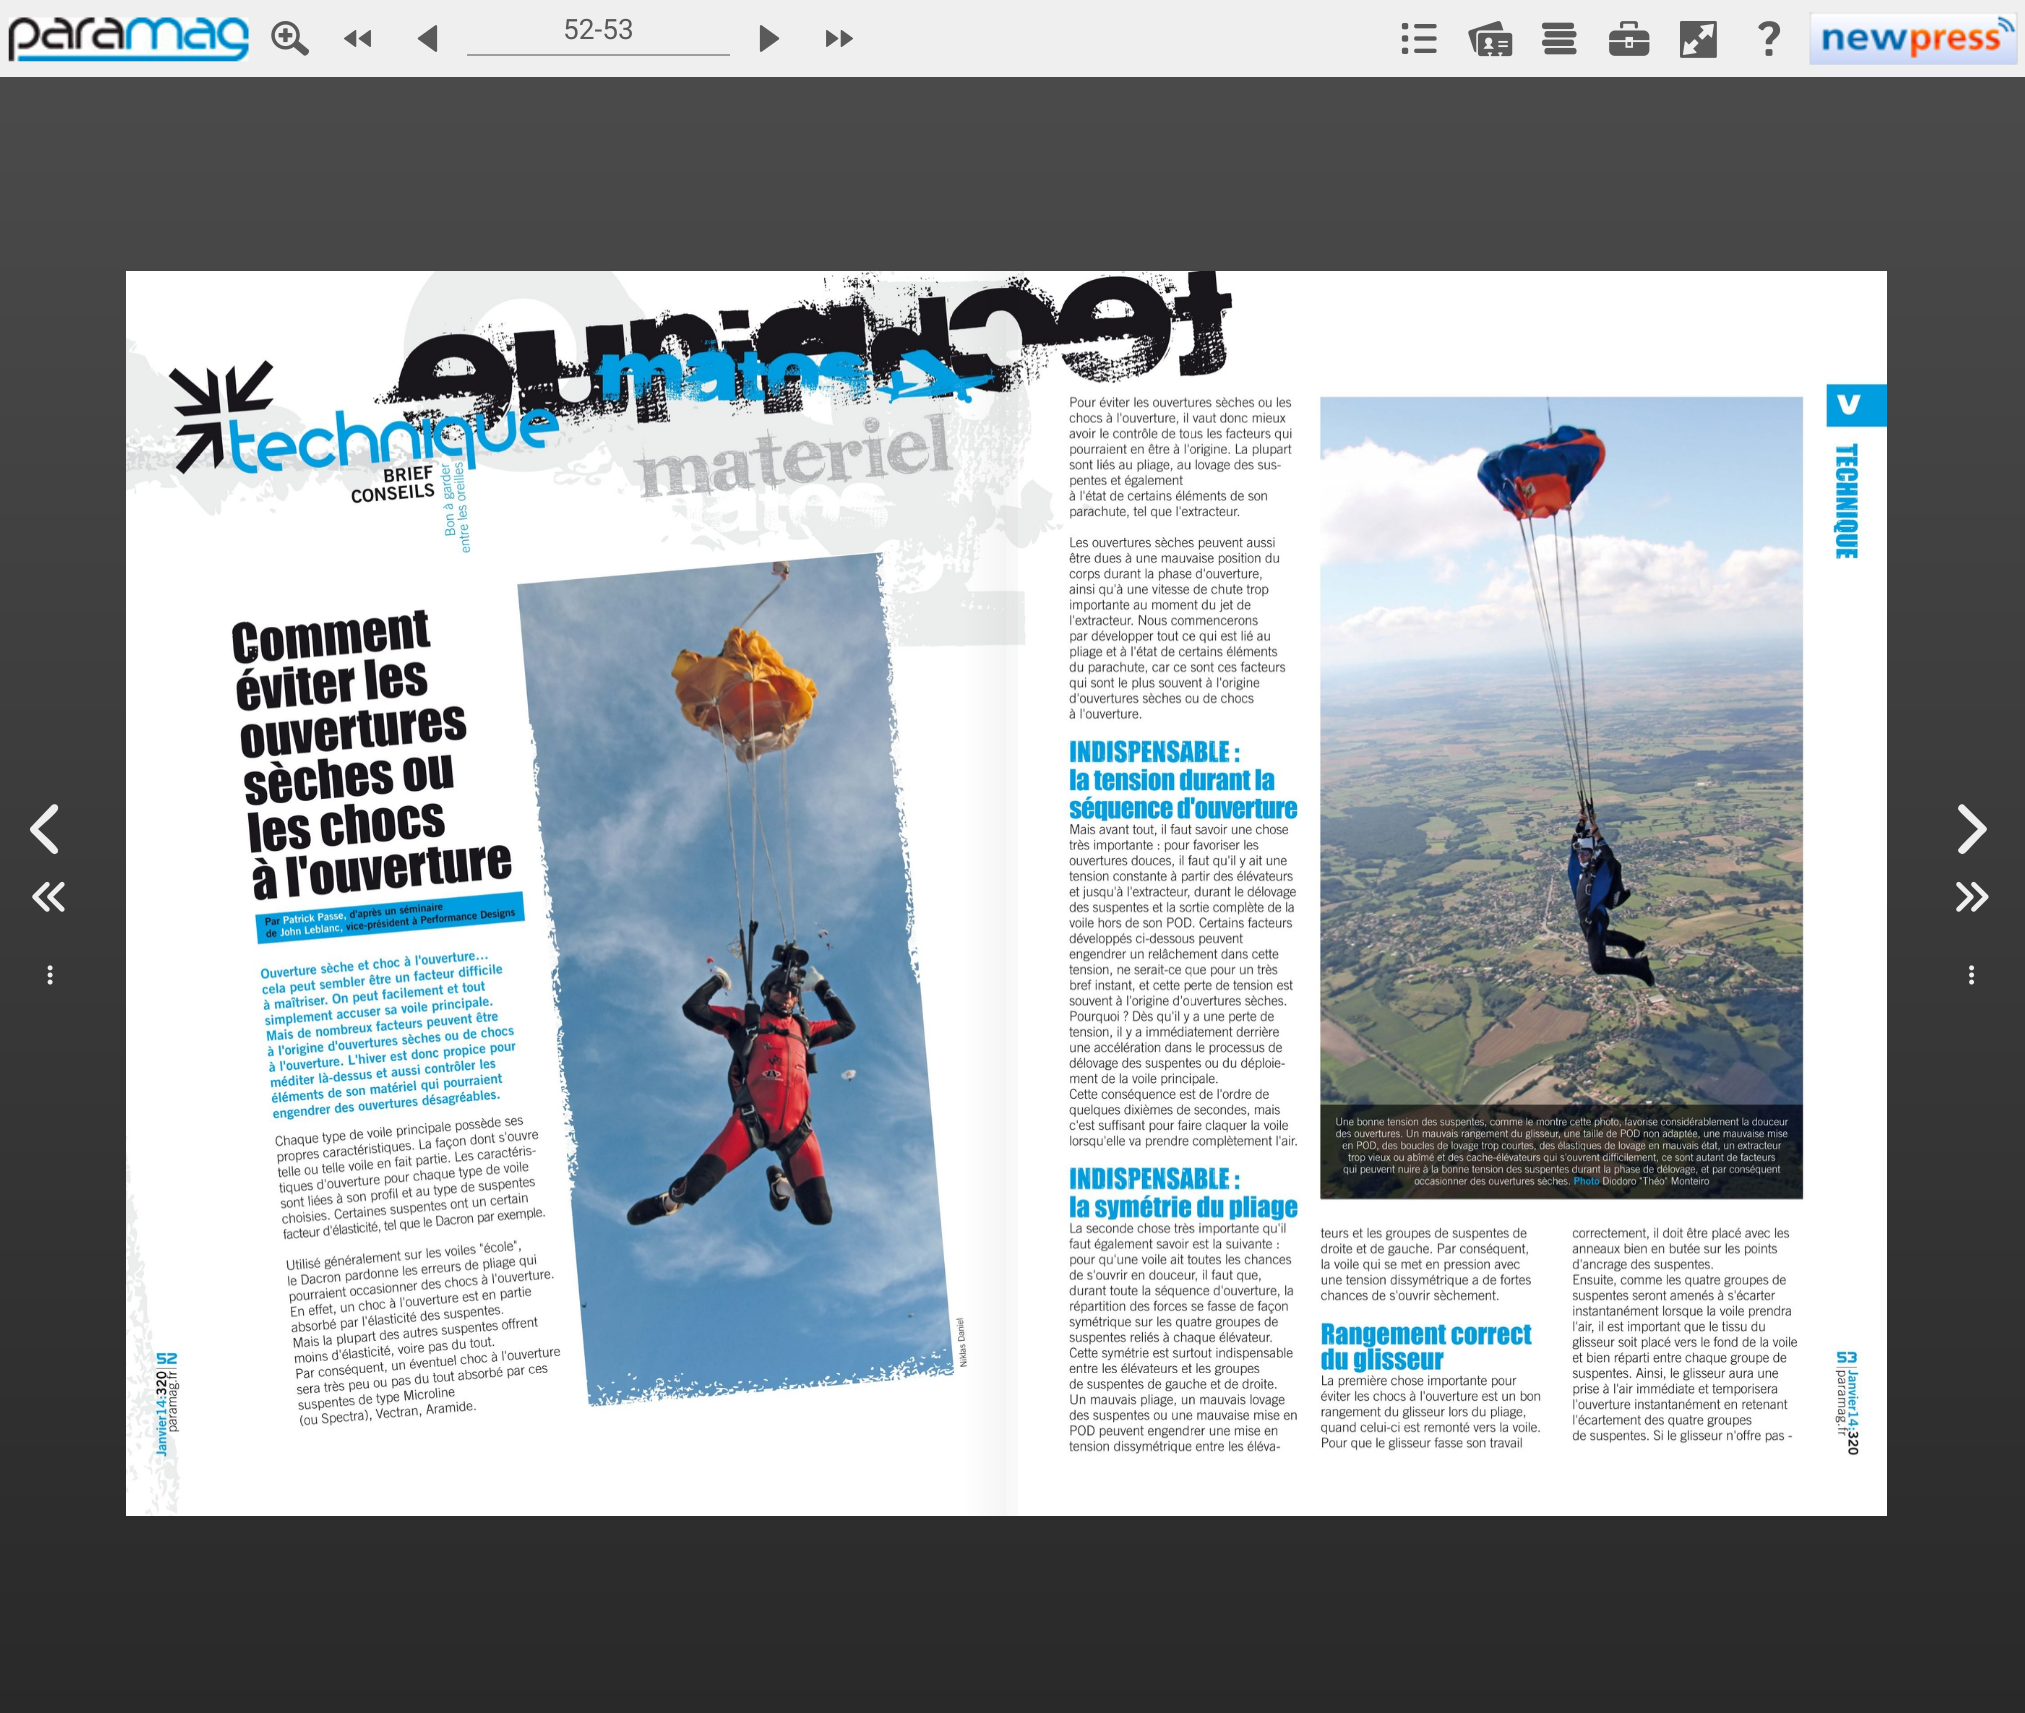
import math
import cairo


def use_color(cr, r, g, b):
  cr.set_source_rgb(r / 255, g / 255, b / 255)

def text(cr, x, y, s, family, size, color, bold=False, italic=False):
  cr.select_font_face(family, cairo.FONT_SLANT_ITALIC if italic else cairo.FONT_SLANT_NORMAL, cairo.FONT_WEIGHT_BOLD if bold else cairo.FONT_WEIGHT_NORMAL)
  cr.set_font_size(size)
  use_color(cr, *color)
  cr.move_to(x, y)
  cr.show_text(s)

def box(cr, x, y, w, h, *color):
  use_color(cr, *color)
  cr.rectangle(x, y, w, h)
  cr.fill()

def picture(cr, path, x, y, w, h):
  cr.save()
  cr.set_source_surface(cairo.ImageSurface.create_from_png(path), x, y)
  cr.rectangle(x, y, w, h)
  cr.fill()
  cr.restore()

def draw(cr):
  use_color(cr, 255, 255, 255)
  cr.paint()
  gradient = cairo.LinearGradient(1013, 0, 1013, 1713)
  gradient.add_color_stop_rgba(0, 0.298, 0.298, 0.298, 1)
  gradient.add_color_stop_rgba(1, 0.161, 0.161, 0.161, 1)
  cr.set_source(gradient)
  cr.rectangle(0, 77, 2025, 1636)
  cr.fill()
  box(cr, 0, 0, 2025, 77, 239, 239, 239)
  picture(cr, "img_01.png", 8, 17, 241, 45)
  picture(cr, "img_02.png", 271, 21, 39, 35)
  picture(cr, "img_03.png", 344, 30, 27, 17)
  picture(cr, "img_04.png", 417, 25, 21, 27)
  box(cr, 467, 54, 263, 2, 158, 158, 158)
  picture(cr, "img_05.png", 759, 25, 21, 27)
  picture(cr, "img_06.png", 826, 30, 27, 17)
  picture(cr, "img_07.png", 1401, 23, 36, 31)
  picture(cr, "img_08.png", 1468, 21, 45, 36)
  picture(cr, "img_09.png", 1542, 22, 35, 33)
  picture(cr, "img_10.png", 1609, 21, 41, 35)
  picture(cr, "img_11.png", 1680, 21, 37, 37)
  picture(cr, "img_12.png", 1758, 21, 23, 35)
  picture(cr, "img_13.png", 1809, 12, 209, 53)
  use_color(cr, 238, 238, 238)
  cr.new_path()
  cr.move_to(31, 827)
  cr.curve_to(28, 830, 32, 833, 34, 835)
  cr.line_to(49, 850)
  cr.curve_to(51, 852, 54, 856, 57, 853)
  cr.curve_to(58, 853, 58, 851, 58, 850)
  cr.curve_to(58, 847, 41, 832, 38, 829)
  cr.curve_to(41, 826, 58, 812, 58, 809)
  cr.curve_to(59, 805, 55, 803, 52, 805)
  cr.close_path()
  cr.fill()
  picture(cr, "img_14.png", 32, 881, 33, 31)
  picture(cr, "img_15.png", 47, 965, 6, 20)
  picture(cr, "img_16.png", 126, 271, 880, 1245)
  box(cr, 1006, 1457, 881, 59, 255, 255, 255)
  picture(cr, "img_17.png", 1006, 271, 881, 1186)
  gradient = cairo.LinearGradient(1887, 895, 1006, 895)
  gradient.add_color_stop_rgba(0.95, 0, 0, 0, 0)
  gradient.add_color_stop_rgba(1, 0, 0, 0, 0.03)
  cr.set_source(gradient)
  cr.rectangle(1006, 271, 12, 1245)
  cr.fill()
  use_color(cr, 238, 238, 238)
  cr.new_path()
  cr.move_to(1986, 827)
  cr.curve_to(1989, 830, 1984, 833, 1982, 835)
  cr.line_to(1968, 850)
  cr.curve_to(1966, 852, 1963, 856, 1960, 853)
  cr.curve_to(1959, 853, 1958, 851, 1958, 850)
  cr.curve_to(1959, 847, 1975, 832, 1978, 829)
  cr.curve_to(1975, 826, 1959, 812, 1958, 809)
  cr.curve_to(1958, 805, 1962, 803, 1964, 805)
  cr.close_path()
  cr.fill()
  picture(cr, "img_18.png", 1956, 881, 33, 31)
  picture(cr, "img_19.png", 1969, 965, 6, 20)
  text(cr, 563, 39, "52-53", "Roboto", 28, (90, 90, 90))


surface = cairo.ImageSurface(cairo.FORMAT_RGB24, 2025, 1713)
cr = cairo.Context(surface)
options = cairo.FontOptions()
options.set_hint_metrics(cairo.HINT_METRICS_OFF)
options.set_hint_style(cairo.HINT_STYLE_NONE)
cr.set_font_options(options)
cr.set_miter_limit(4)
draw(cr)
surface.write_to_png("out.png")
